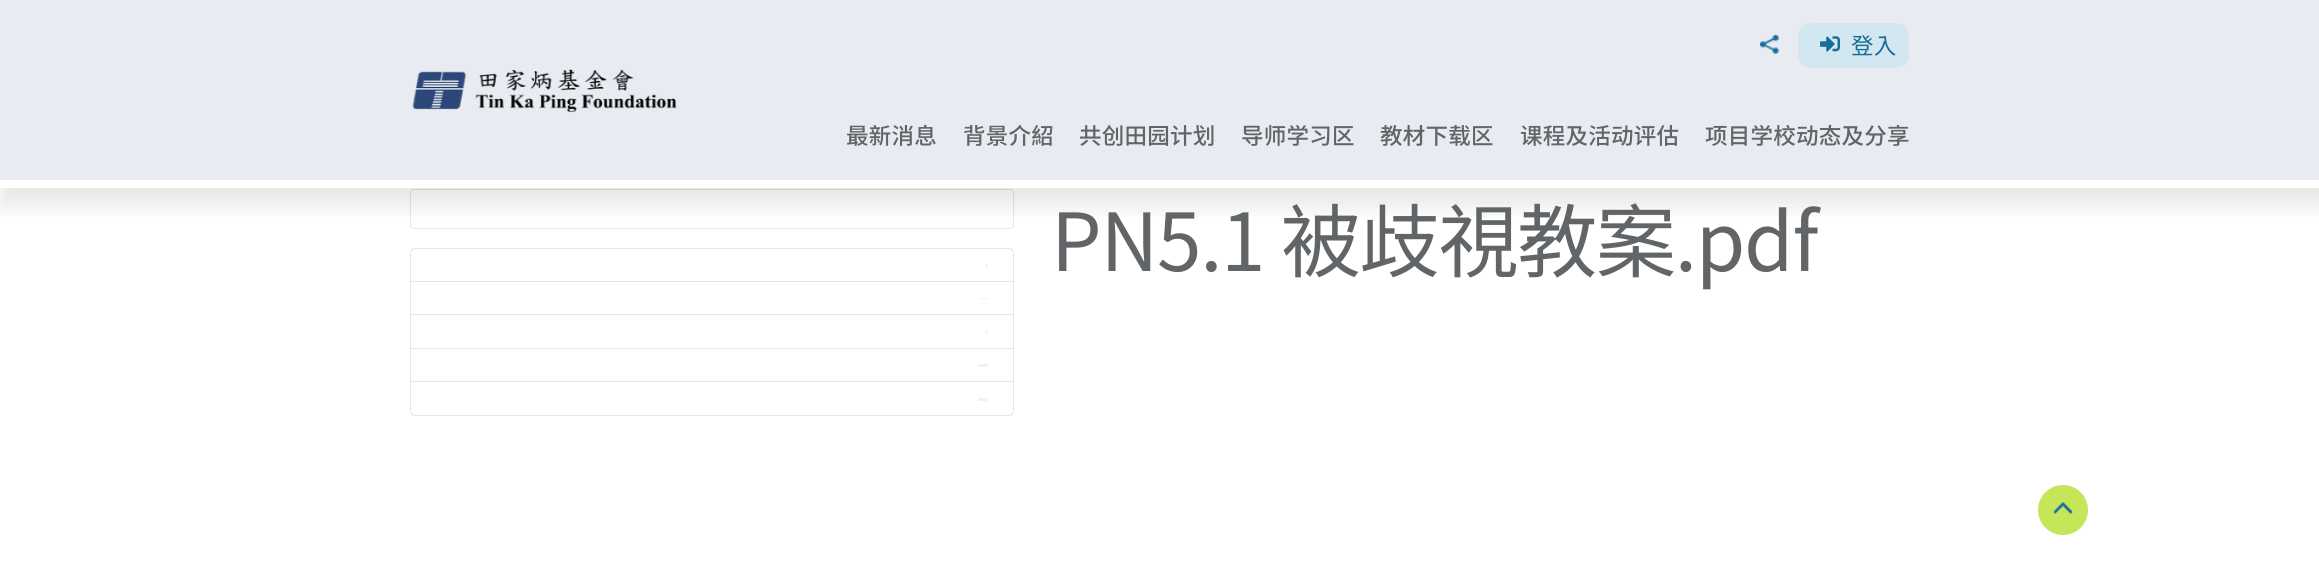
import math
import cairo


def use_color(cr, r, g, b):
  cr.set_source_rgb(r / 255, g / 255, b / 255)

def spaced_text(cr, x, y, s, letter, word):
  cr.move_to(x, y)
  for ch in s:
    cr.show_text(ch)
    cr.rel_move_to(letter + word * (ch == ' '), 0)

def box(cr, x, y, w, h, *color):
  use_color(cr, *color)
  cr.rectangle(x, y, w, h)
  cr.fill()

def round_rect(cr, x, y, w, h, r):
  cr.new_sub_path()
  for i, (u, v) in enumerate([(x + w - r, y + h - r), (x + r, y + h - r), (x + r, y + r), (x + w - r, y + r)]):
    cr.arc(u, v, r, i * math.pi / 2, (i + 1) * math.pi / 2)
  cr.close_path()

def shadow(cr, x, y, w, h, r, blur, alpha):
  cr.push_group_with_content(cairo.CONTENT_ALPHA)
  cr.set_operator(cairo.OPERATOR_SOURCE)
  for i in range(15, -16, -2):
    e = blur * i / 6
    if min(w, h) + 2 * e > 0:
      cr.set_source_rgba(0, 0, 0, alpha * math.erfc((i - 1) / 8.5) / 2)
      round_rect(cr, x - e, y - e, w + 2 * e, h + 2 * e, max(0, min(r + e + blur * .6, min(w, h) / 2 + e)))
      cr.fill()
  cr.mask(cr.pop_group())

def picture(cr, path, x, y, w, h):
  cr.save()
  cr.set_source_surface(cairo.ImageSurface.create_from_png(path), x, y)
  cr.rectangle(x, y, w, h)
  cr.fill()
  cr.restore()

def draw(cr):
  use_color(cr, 255, 255, 255)
  cr.paint()
  box(cr, 0, 0, 2319, 180, 233, 235, 242)
  round_rect(cr, 410.5, 189.5, 603, 39, 3.5)
  use_color(cr, 229, 229, 229)
  cr.set_line_width(1)
  cr.stroke()
  cr.save()
  cr.rectangle(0, 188, 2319, 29)
  cr.clip()
  use_color(cr, 0, 0, 0)
  shadow(cr, 0, -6, 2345, 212, 0, 12.5, 0.1)
  cr.restore()
  box(cr, 0, 187, 2319, 1, 255, 255, 255)
  picture(cr, "img_01.png", 412, 69, 265, 44)
  picture(cr, "img_02.png", 1760, 34, 19, 20)
  use_color(cr, 211, 231, 240)
  round_rect(cr, 1798, 23, 111, 45, 13)
  cr.fill()
  picture(cr, "img_03.png", 1820, 36, 20, 16)
  cr.new_path()
  cr.move_to(415, 248.5)
  cr.line_to(1009, 248.5)
  cr.curve_to(1011.5, 248.5, 1013.5, 250.5, 1013.5, 253)
  cr.line_to(1013.5, 282.5)
  cr.line_to(410.5, 282.5)
  cr.line_to(410.5, 253)
  cr.curve_to(410.5, 250.5, 412.5, 248.5, 415, 248.5)
  cr.close_path()
  use_color(cr, 229, 229, 229)
  cr.stroke()
  use_color(cr, 242, 242, 242)
  cr.arc(986.5, 265.5, 1.5, 0, 2 * math.pi)
  cr.fill()
  box(cr, 411, 282, 602, 1, 255, 255, 255)
  cr.rectangle(410.5, 281.5, 603, 33)
  use_color(cr, 229, 229, 229)
  cr.stroke()
  use_color(cr, 242, 242, 242)
  round_rect(cr, 980, 298, 8, 1, 0.5)
  cr.fill()
  cr.rectangle(410.5, 314.5, 603, 34)
  use_color(cr, 229, 229, 229)
  cr.stroke()
  use_color(cr, 242, 242, 242)
  cr.arc(986.5, 331.5, 1.5, 0, 2 * math.pi)
  cr.fill()
  cr.rectangle(410.5, 348.5, 603, 34)
  use_color(cr, 229, 229, 229)
  cr.stroke()
  use_color(cr, 242, 242, 242)
  round_rect(cr, 978, 364, 10, 3, 1.5)
  cr.fill()
  use_color(cr, 255, 255, 255)
  cr.new_path()
  cr.move_to(410.5, 381.5)
  cr.line_to(1013.5, 381.5)
  cr.line_to(1013.5, 411)
  cr.curve_to(1013.5, 413.5, 1011.5, 415.5, 1009, 415.5)
  cr.line_to(415, 415.5)
  cr.curve_to(412.5, 415.5, 410.5, 413.5, 410.5, 411)
  cr.close_path()
  cr.fill_preserve()
  use_color(cr, 229, 229, 229)
  cr.stroke()
  use_color(cr, 242, 242, 242)
  round_rect(cr, 978, 398, 10, 3, 1.5)
  cr.fill()
  use_color(cr, 198, 230, 90)
  cr.arc(2063, 510, 25, 0, 2 * math.pi)
  cr.fill()
  picture(cr, "img_04.png", 2053, 502, 20, 12)
  cr.select_font_face("Noto Sans TC Thin")
  cr.set_font_size(22.5)
  use_color(cr, 25, 109, 153)
  spaced_text(cr, 1851, 54, "登入", 0.25, 0)
  cr.select_font_face("Noto Sans SC Medium")
  use_color(cr, 98, 101, 103)
  spaced_text(cr, 846, 144, "最新消息", 0.25, 0)
  spaced_text(cr, 963, 144, "背景介紹", 0.25, 0)
  spaced_text(cr, 1079, 144, "共创田园计划", 0.25, 0)
  spaced_text(cr, 1241, 144, "导师学习区", 0.25, 0)
  spaced_text(cr, 1380, 144, "教材下载区", 0.25, 0)
  spaced_text(cr, 1520, 144, "课程及活动评估", 0.25, 0)
  spaced_text(cr, 1705, 144, "项目学校动态及分享", 0.25, 0)
  cr.select_font_face("Noto Sans SC")
  cr.set_font_size(80)
  spaced_text(cr, 1051, 271, "PN5.1 被歧視教案.pdf", -1.25, 0)


surface = cairo.ImageSurface(cairo.FORMAT_RGB24, 2319, 568)
cr = cairo.Context(surface)
options = cairo.FontOptions()
options.set_hint_metrics(cairo.HINT_METRICS_OFF)
options.set_hint_style(cairo.HINT_STYLE_NONE)
cr.set_font_options(options)
cr.set_miter_limit(4)
draw(cr)
surface.write_to_png("out.png")
